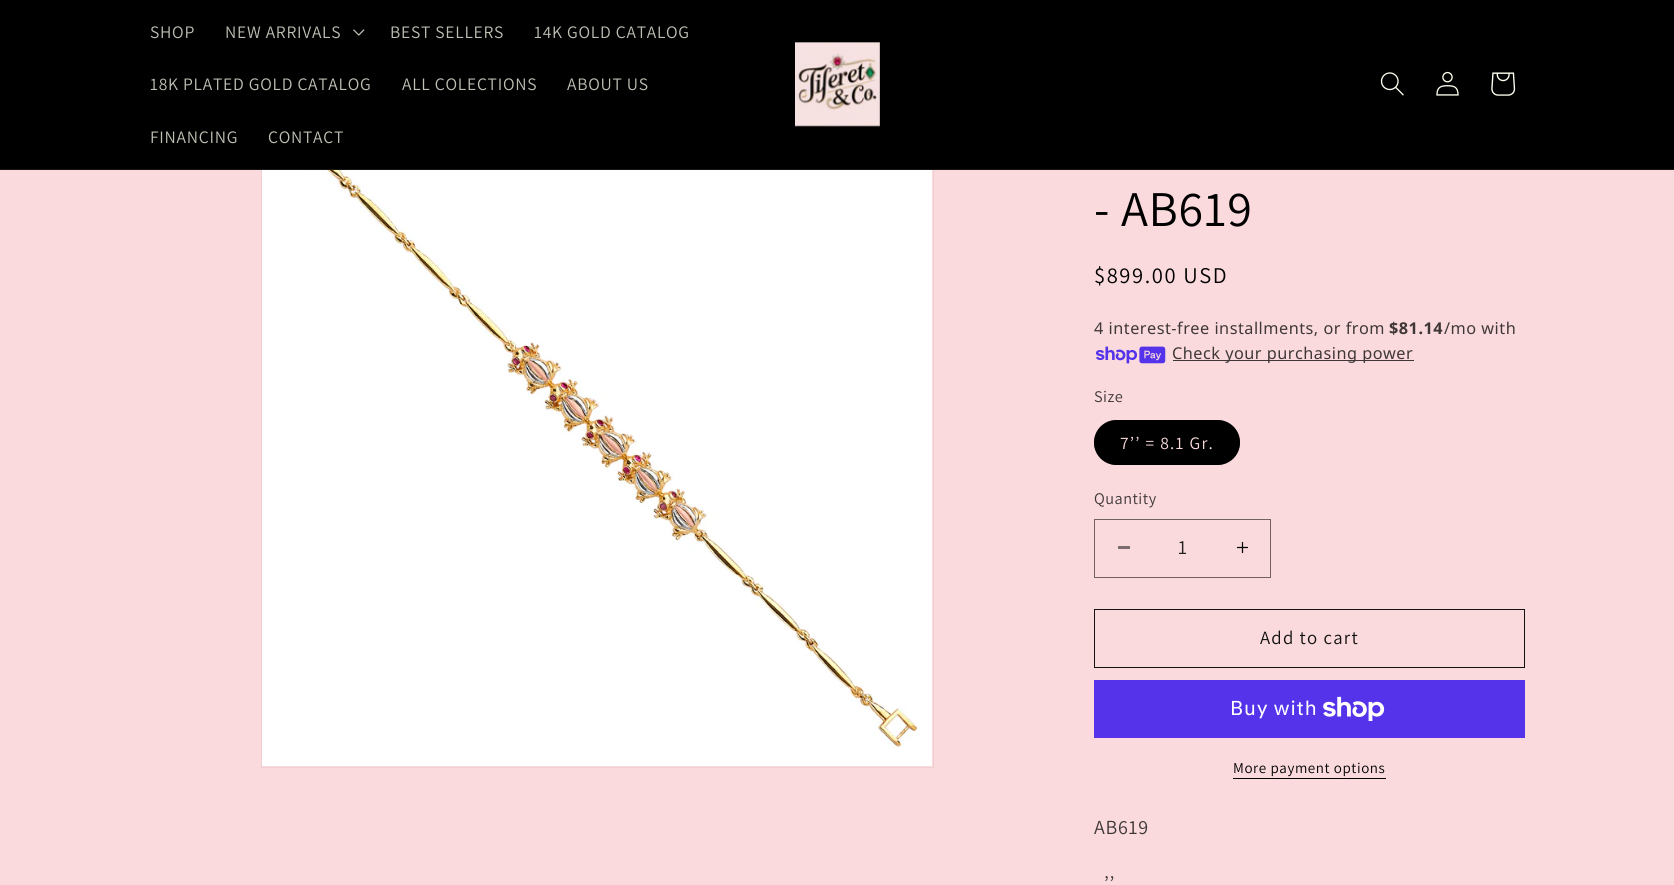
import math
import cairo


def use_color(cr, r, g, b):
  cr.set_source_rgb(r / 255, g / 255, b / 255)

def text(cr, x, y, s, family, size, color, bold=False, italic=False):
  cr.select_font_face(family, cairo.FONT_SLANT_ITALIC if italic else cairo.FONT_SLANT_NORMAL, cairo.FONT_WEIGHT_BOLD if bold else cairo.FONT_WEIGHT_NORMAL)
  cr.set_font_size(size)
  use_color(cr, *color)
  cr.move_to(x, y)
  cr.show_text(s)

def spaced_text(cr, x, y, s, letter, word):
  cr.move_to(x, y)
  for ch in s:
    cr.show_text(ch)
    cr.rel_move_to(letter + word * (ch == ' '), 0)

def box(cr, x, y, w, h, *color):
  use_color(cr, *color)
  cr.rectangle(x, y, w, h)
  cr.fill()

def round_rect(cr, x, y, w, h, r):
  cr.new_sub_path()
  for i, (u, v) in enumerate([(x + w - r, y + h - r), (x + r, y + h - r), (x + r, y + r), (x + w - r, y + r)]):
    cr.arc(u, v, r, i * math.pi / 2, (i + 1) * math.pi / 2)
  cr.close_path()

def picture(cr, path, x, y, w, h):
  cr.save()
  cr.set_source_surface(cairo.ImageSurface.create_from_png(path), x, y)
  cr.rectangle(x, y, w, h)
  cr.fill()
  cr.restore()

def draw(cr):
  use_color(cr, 250, 218, 221)
  cr.paint()
  cr.rectangle(261.5, 95.5, 672, 672)
  use_color(cr, 238, 207, 210)
  cr.set_line_width(1)
  cr.stroke()
  box(cr, 0, 0, 1674, 169, 0, 0, 0)
  box(cr, 0, 169, 1674, 1, 20, 20, 19)
  picture(cr, "img_01.png", 353, 29, 12, 7)
  picture(cr, "img_02.png", 795, 42, 85, 85)
  picture(cr, "img_03.png", 1380, 72, 24, 24)
  picture(cr, "img_04.png", 1436, 71, 23, 25)
  picture(cr, "img_05.png", 1491, 72, 25, 24)
  picture(cr, "img_06.png", 262, 170, 670, 596)
  picture(cr, "img_07.png", 1096, 346, 70, 18)
  box(cr, 1173, 360, 241, 1, 63, 55, 55)
  use_color(cr, 0, 0, 0)
  round_rect(cr, 1094, 420, 146, 45, 22.5)
  cr.fill()
  round_rect(cr, 1094.5, 420.5, 145, 44, 22)
  cr.set_source_rgba(0, 0, 0, 0.55)
  cr.stroke()
  box(cr, 1118, 546, 12, 3, 125, 109, 111)
  picture(cr, "img_08.png", 1236, 541, 13, 13)
  cr.rectangle(1094.5, 519.5, 176, 58)
  use_color(cr, 113, 98, 99)
  cr.stroke()
  cr.rectangle(1094.5, 609.5, 430, 58)
  use_color(cr, 18, 18, 18)
  cr.stroke()
  box(cr, 1094, 680, 431, 58, 84, 51, 235)
  picture(cr, "img_09.png", 1323, 696, 62, 25)
  box(cr, 1233, 778, 153, 1, 0, 0, 0)
  cr.select_font_face("Assistant")
  cr.set_font_size(17.5)
  use_color(cr, 191, 191, 180)
  spaced_text(cr, 150, 38, "SHOP", 0.75, 0)
  spaced_text(cr, 225, 38, "NEW ARRIVALS", 0.75, 0)
  spaced_text(cr, 390, 38, "BEST SELLERS", 0.75, 0)
  spaced_text(cr, 534, 38, "14K GOLD CATALOG", 0.75, 0)
  spaced_text(cr, 150, 90, "18K PLATED GOLD CATALOG", 0.75, 0)
  spaced_text(cr, 402, 90, "ALL COLECTIONS", 0.75, 0)
  spaced_text(cr, 567, 90, "ABOUT US", 0.75, 0)
  spaced_text(cr, 150, 143, "FINANCING", 0.75, 0)
  spaced_text(cr, 268, 143, "CONTACT", 0.75, 0)
  cr.set_font_size(50)
  use_color(cr, 0, 0, 0)
  spaced_text(cr, 1094, 226, "- AB619", 0.75, 0)
  cr.set_font_size(22.5)
  spaced_text(cr, 1094, 283, "$899.00 USD", 1.6, 0)
  cr.select_font_face("Noto Sans")
  cr.set_font_size(16.25)
  use_color(cr, 63, 55, 55)
  spaced_text(cr, 1094, 334, "4 interest-free installments, or from", 0.5, 0)
  cr.select_font_face("Noto Sans", cairo.FONT_SLANT_NORMAL, cairo.FONT_WEIGHT_BOLD)
  spaced_text(cr, 1389, 334, "$81.14", 0.5, 0)
  cr.select_font_face("Noto Sans")
  spaced_text(cr, 1444, 334, "/mo with", 0.5, 0)
  spaced_text(cr, 1172, 359, "Check your purchasing power", 0.5, 0)
  cr.select_font_face("Assistant")
  spaced_text(cr, 1094, 402, "Size", 0.5, 0)
  cr.set_font_size(17.5)
  use_color(cr, 250, 218, 221)
  spaced_text(cr, 1120, 449, "7’’ = 8.1 Gr.", 1.25, 0)
  cr.set_font_size(16.25)
  use_color(cr, 63, 55, 55)
  spaced_text(cr, 1094, 504, "Quantity", 0.5, 0)
  text(cr, 1178, 554, "1", "Assistant", 20, (38, 33, 33))
  cr.set_font_size(18.75)
  use_color(cr, 18, 18, 18)
  spaced_text(cr, 1260, 644, "Add to cart", 1.25, 0)
  cr.select_font_face("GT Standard")
  cr.set_font_size(20)
  use_color(cr, 255, 255, 255)
  spaced_text(cr, 1230, 715, "Buy with", 0.75, 0)
  cr.select_font_face("Assistant")
  cr.set_font_size(15)
  use_color(cr, 0, 0, 0)
  spaced_text(cr, 1233, 773, "More payment options", 0.6, 0)
  cr.set_font_size(20)
  use_color(cr, 63, 55, 55)
  spaced_text(cr, 1094, 834, "AB619", 0.75, 0)
  spaced_text(cr, 1104, 890, "’’", 0.75, 0)


surface = cairo.ImageSurface(cairo.FORMAT_RGB24, 1674, 885)
cr = cairo.Context(surface)
options = cairo.FontOptions()
options.set_hint_metrics(cairo.HINT_METRICS_OFF)
options.set_hint_style(cairo.HINT_STYLE_NONE)
cr.set_font_options(options)
cr.set_miter_limit(4)
draw(cr)
surface.write_to_png("out.png")
